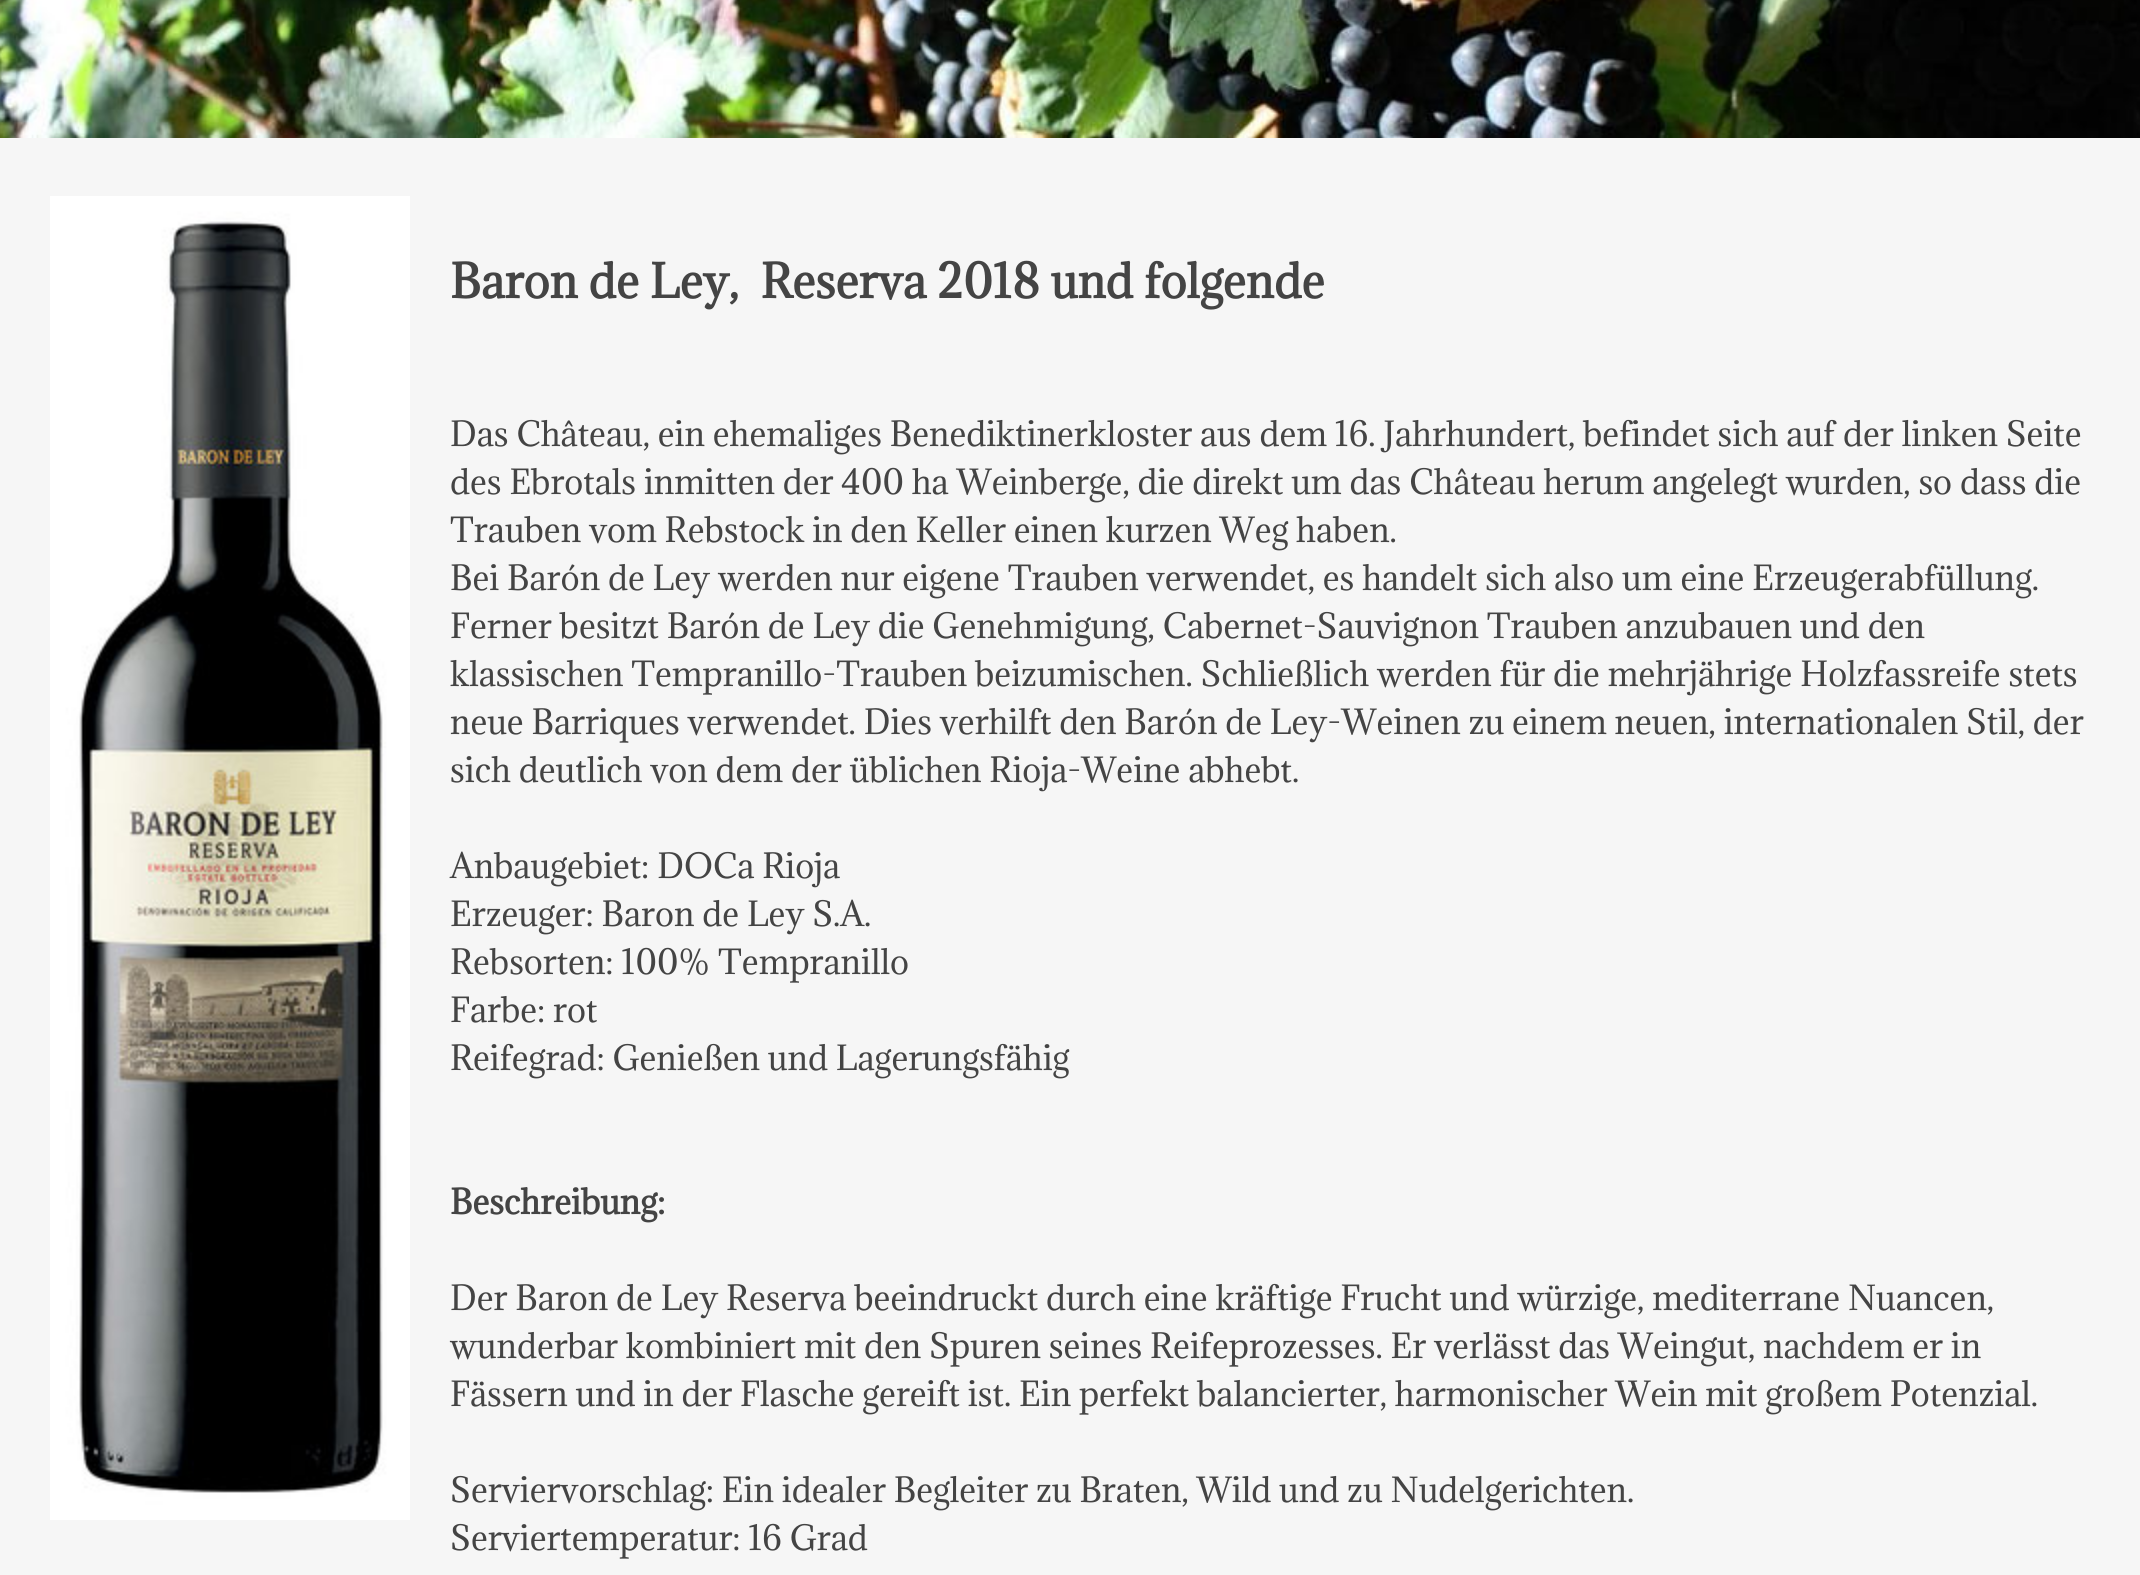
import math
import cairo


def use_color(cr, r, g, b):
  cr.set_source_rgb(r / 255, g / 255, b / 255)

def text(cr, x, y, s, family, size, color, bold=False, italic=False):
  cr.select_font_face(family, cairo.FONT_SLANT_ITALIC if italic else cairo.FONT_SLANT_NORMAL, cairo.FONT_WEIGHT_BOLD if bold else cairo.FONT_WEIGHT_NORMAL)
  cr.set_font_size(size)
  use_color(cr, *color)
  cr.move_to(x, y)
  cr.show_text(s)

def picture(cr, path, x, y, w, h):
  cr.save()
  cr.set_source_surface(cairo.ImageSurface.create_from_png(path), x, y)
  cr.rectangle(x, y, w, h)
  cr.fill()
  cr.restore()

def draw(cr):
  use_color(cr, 246, 246, 246)
  cr.paint()
  picture(cr, "img_01.png", 0, 0, 2140, 138)
  picture(cr, "img_02.png", 50, 196, 360, 1324)
  text(cr, 450, 298, "Baron de Ley,  Reserva 2018 und folgende", "Adamina", 44, (68, 68, 68), bold=True)
  text(cr, 450, 446, "Das Château, ein ehemaliges Benediktinerkloster aus dem 16. Jahrhundert, befindet sich auf der linken Seite", "Adamina", 32, (68, 68, 68))
  text(cr, 450, 494, "des Ebrotals inmitten der 400 ha Weinberge, die direkt um das Château herum angelegt wurden, so dass die", "Adamina", 32, (68, 68, 68))
  text(cr, 450, 542, "Trauben vom Rebstock in den Keller einen kurzen Weg haben.", "Adamina", 32, (68, 68, 68))
  text(cr, 450, 590, "Bei Barón de Ley werden nur eigene Trauben verwendet, es handelt sich also um eine Erzeugerabfüllung.", "Adamina", 32, (68, 68, 68))
  text(cr, 450, 638, "Ferner besitzt Barón de Ley die Genehmigung, Cabernet-Sauvignon Trauben anzubauen und den", "Adamina", 32, (68, 68, 68))
  text(cr, 450, 686, "klassischen Tempranillo-Trauben beizumischen. Schließlich werden für die mehrjährige Holzfassreife stets", "Adamina", 32, (68, 68, 68))
  text(cr, 450, 734, "neue Barriques verwendet. Dies verhilft den Barón de Ley-Weinen zu einem neuen, internationalen Stil, der", "Adamina", 32, (68, 68, 68))
  text(cr, 450, 782, "sich deutlich von dem der üblichen Rioja-Weine abhebt.", "Adamina", 32, (68, 68, 68))
  text(cr, 450, 878, "Anbaugebiet: DOCa Rioja", "Adamina", 32, (68, 68, 68))
  text(cr, 450, 926, "Erzeuger: Baron de Ley S.A.", "Adamina", 32, (68, 68, 68))
  text(cr, 450, 974, "Rebsorten: 100% Tempranillo", "Adamina", 32, (68, 68, 68))
  text(cr, 450, 1022, "Farbe: rot", "Adamina", 32, (68, 68, 68))
  text(cr, 450, 1070, "Reifegrad: Genießen und Lagerungsfähig", "Adamina", 32, (68, 68, 68))
  text(cr, 450, 1214, "Beschreibung:", "Adamina", 32, (68, 68, 68), bold=True)
  text(cr, 450, 1310, "Der Baron de Ley Reserva beeindruckt durch eine kräftige Frucht und würzige, mediterrane Nuancen,", "Adamina", 32, (68, 68, 68))
  text(cr, 450, 1358, "wunderbar kombiniert mit den Spuren seines Reifeprozesses. Er verlässt das Weingut, nachdem er in", "Adamina", 32, (68, 68, 68))
  text(cr, 450, 1406, "Fässern und in der Flasche gereift ist. Ein perfekt balancierter, harmonischer Wein mit großem Potenzial.", "Adamina", 32, (68, 68, 68))
  text(cr, 450, 1502, "Serviervorschlag: Ein idealer Begleiter zu Braten, Wild und zu Nudelgerichten.", "Adamina", 32, (68, 68, 68))
  text(cr, 450, 1550, "Serviertemperatur: 16 Grad", "Adamina", 32, (68, 68, 68))


surface = cairo.ImageSurface(cairo.FORMAT_RGB24, 2140, 1575)
cr = cairo.Context(surface)
options = cairo.FontOptions()
options.set_hint_metrics(cairo.HINT_METRICS_OFF)
options.set_hint_style(cairo.HINT_STYLE_NONE)
cr.set_font_options(options)
cr.set_miter_limit(4)
draw(cr)
surface.write_to_png("out.png")
